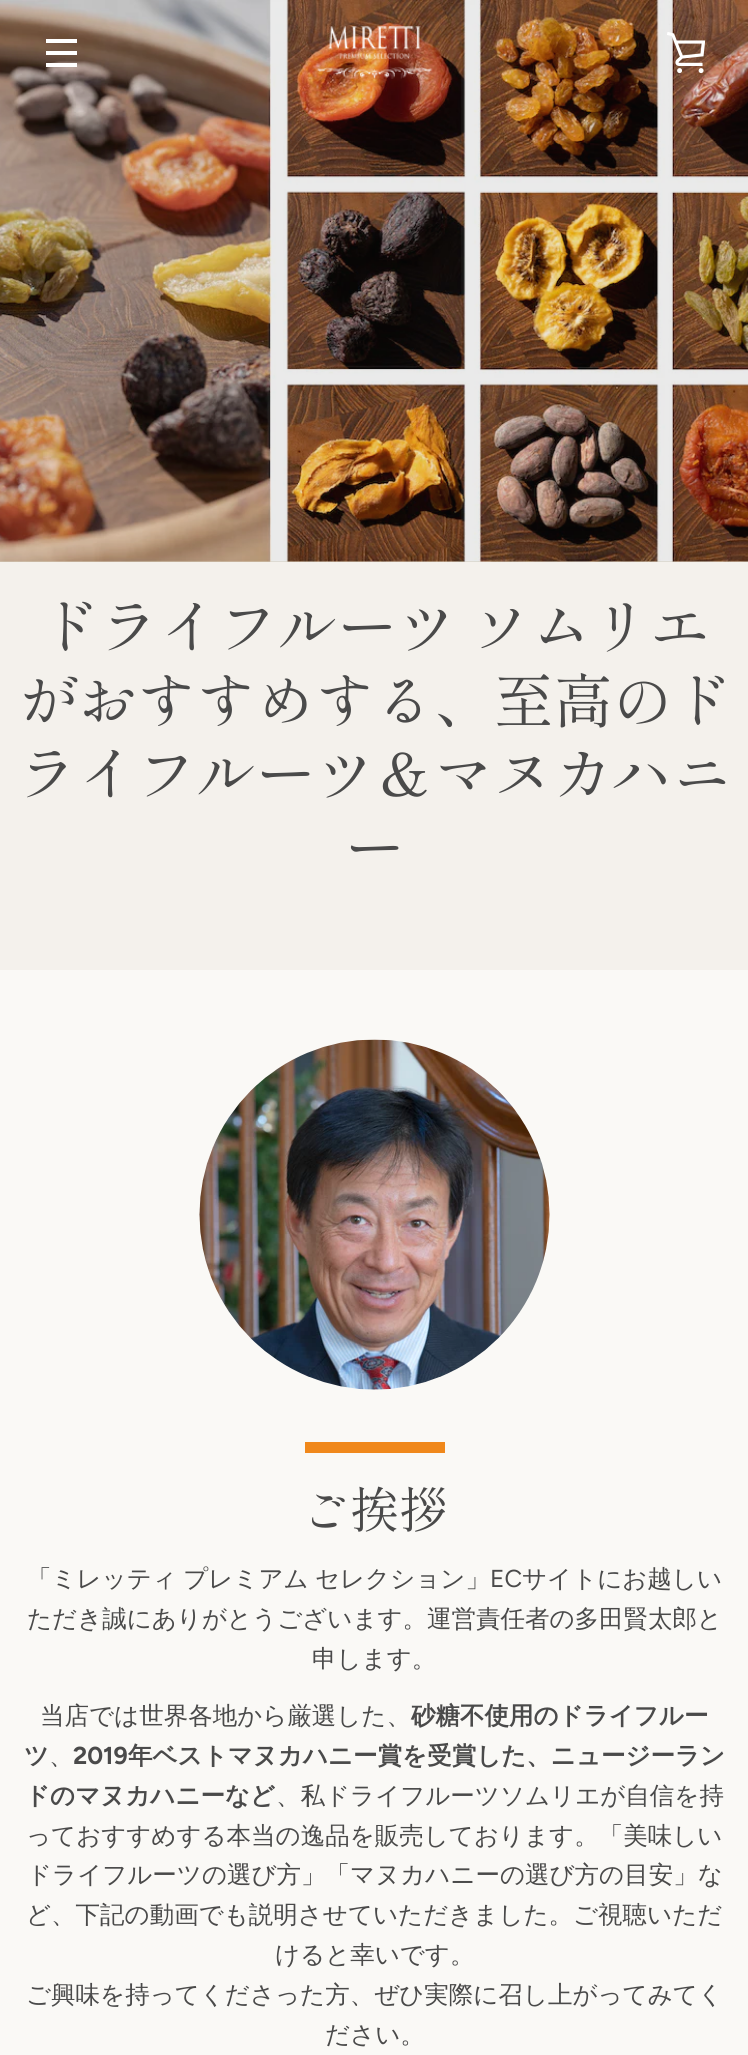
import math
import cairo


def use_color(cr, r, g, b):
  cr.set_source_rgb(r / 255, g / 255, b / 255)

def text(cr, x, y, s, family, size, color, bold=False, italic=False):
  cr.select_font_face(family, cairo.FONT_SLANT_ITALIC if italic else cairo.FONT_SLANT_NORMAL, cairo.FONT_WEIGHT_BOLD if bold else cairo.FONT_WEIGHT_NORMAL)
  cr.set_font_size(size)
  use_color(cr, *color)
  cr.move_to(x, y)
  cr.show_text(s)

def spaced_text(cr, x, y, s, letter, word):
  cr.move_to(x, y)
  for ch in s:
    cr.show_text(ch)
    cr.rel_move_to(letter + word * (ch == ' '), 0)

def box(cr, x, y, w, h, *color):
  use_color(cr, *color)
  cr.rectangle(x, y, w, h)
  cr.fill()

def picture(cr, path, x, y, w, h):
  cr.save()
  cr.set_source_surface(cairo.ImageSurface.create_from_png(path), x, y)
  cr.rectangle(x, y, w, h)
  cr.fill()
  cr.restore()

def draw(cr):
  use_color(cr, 250, 249, 246)
  cr.paint()
  box(cr, 0, 561, 748, 1, 206, 199, 182)
  picture(cr, "img_03.png", 0, 0, 748, 562)
  box(cr, 46, 39, 31, 4, 255, 255, 255)
  box(cr, 46, 51, 31, 4, 255, 255, 255)
  box(cr, 46, 63, 31, 4, 255, 255, 255)
  picture(cr, "img_01.png", 316, 26, 117, 53)
  picture(cr, "img_02.png", 667, 32, 38, 42)
  box(cr, 0, 562, 748, 408, 244, 241, 236)
  picture(cr, "img_04.png", 199, 1039, 351, 351)
  box(cr, 305, 1442, 140, 11, 240, 136, 27)
  text(cr, 40, 649, "ドライフルーツ ソムリエ", "Shippori Mincho", 59.5, (74, 74, 74))
  text(cr, 18, 723, "がおすすめする、至高のド", "Shippori Mincho", 59.5, (74, 74, 74))
  text(cr, 18, 796, "ライフルーツ＆マヌカハニ", "Shippori Mincho", 59.5, (74, 74, 74))
  text(cr, 345, 870, "ー", "Shippori Mincho", 59.5, (74, 74, 74))
  text(cr, 301, 1528, "ご挨拶", "Shippori Mincho", 49, (74, 74, 74))
  cr.select_font_face("WenQuanYi Zen Hei Medium")
  cr.set_font_size(24.5)
  spaced_text(cr, 27, 1587, "「ミレッティ プレミアム セレクション」", 0, -1)
  text(cr, 490, 1587, "EC", "Figtree", 24.5, (74, 74, 74))
  text(cr, 522, 1587, "サイトにお越しい", "WenQuanYi Zen Hei Medium", 24.5, (74, 74, 74))
  text(cr, 27, 1627, "ただき誠にありがとうございます。運営責任者の多田賢太郎と", "WenQuanYi Zen Hei Medium", 24.5, (74, 74, 74))
  text(cr, 312, 1667, "申します。", "WenQuanYi Zen Hei Medium", 24.5, (74, 74, 74))
  text(cr, 40, 1724, "当店では世界各地から厳選した、", "WenQuanYi Zen Hei Medium", 24.5, (74, 74, 74))
  text(cr, 411, 1724, "砂糖不使用のドライフルー", "WenQuanYi Zen Hei", 24.5, (74, 74, 74), bold=True)
  text(cr, 24, 1764, "ツ", "WenQuanYi Zen Hei", 24.5, (74, 74, 74), bold=True)
  text(cr, 49, 1764, "、", "WenQuanYi Zen Hei Medium", 24.5, (74, 74, 74))
  text(cr, 73, 1764, "2019", "Figtree", 24.5, (74, 74, 74), bold=True)
  text(cr, 128, 1764, "年ベストマヌカハニー賞を受賞した、ニュージーラン", "WenQuanYi Zen Hei", 24.5, (74, 74, 74), bold=True)
  text(cr, 25, 1804, "ドのマヌカハニーなど", "WenQuanYi Zen Hei", 24.5, (74, 74, 74), bold=True)
  text(cr, 276, 1804, "、私ドライフルーツソムリエが自信を持", "WenQuanYi Zen Hei Medium", 24.5, (74, 74, 74))
  text(cr, 26, 1844, "っておすすめする本当の逸品を販売しております。「美味しい", "WenQuanYi Zen Hei Medium", 24.5, (74, 74, 74))
  text(cr, 27, 1883, "ドライフルーツの選び方」「マヌカハニーの選び方の目安」な", "WenQuanYi Zen Hei Medium", 24.5, (74, 74, 74))
  text(cr, 26, 1923, "ど、下記の動画でも説明させていただきました。ご視聴いただ", "WenQuanYi Zen Hei Medium", 24.5, (74, 74, 74))
  text(cr, 275, 1963, "けると幸いです。", "WenQuanYi Zen Hei Medium", 24.5, (74, 74, 74))
  text(cr, 26, 2003, "ご興味を持ってくださった方、ぜひ実際に召し上がってみてく", "WenQuanYi Zen Hei Medium", 24.5, (74, 74, 74))
  text(cr, 325, 2043, "ださい。", "WenQuanYi Zen Hei Medium", 24.5, (74, 74, 74))


surface = cairo.ImageSurface(cairo.FORMAT_RGB24, 748, 2055)
cr = cairo.Context(surface)
options = cairo.FontOptions()
options.set_hint_metrics(cairo.HINT_METRICS_OFF)
options.set_hint_style(cairo.HINT_STYLE_NONE)
cr.set_font_options(options)
cr.set_miter_limit(4)
draw(cr)
surface.write_to_png("out.png")
